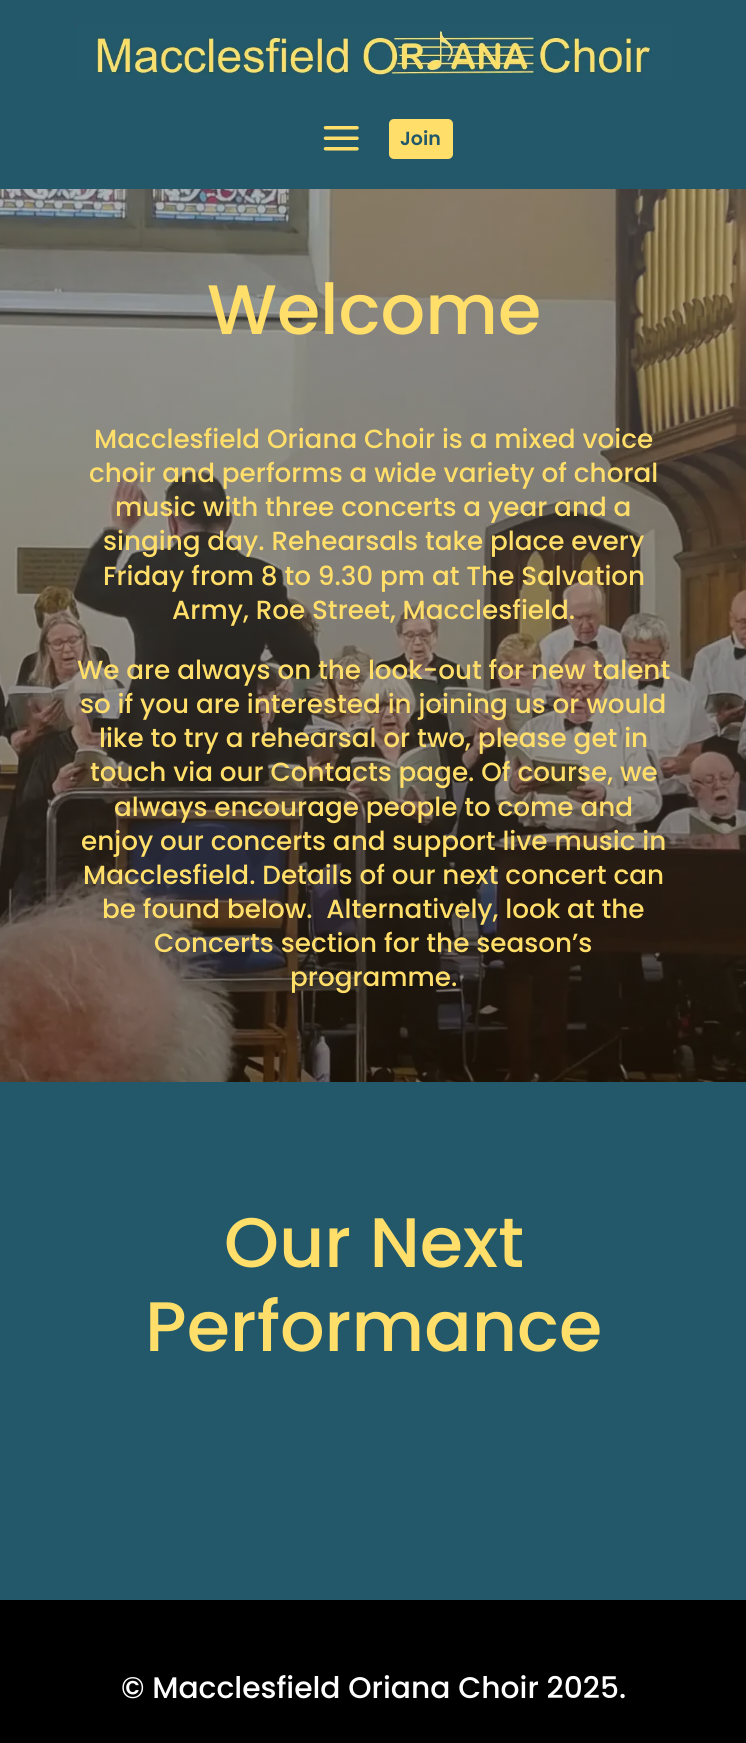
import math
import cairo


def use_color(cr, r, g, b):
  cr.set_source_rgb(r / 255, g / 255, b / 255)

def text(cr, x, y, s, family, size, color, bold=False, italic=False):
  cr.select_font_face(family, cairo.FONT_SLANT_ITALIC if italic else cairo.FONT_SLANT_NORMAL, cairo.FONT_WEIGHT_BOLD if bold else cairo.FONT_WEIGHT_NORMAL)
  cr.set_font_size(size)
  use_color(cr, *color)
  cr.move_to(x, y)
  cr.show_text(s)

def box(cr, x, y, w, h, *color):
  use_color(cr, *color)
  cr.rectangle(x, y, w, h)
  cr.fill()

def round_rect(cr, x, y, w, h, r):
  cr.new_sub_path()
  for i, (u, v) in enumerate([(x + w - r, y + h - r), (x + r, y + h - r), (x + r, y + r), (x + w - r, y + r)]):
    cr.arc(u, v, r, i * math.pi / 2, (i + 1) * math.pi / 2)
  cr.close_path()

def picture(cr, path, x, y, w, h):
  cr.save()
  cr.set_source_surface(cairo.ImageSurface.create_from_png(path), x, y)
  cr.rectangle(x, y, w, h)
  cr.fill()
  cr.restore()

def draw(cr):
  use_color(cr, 255, 255, 255)
  cr.paint()
  box(cr, 0, 0, 746, 189, 34, 88, 106)
  picture(cr, "img_01.png", 75, 23, 597, 58)
  picture(cr, "img_02.png", 323, 126, 36, 25)
  use_color(cr, 255, 222, 105)
  round_rect(cr, 389, 119, 64, 40, 5)
  cr.fill()
  picture(cr, "img_03.png", 0, 189, 746, 893)
  box(cr, 0, 1082, 746, 518, 34, 88, 106)
  box(cr, 0, 1600, 746, 143, 0, 0, 0)
  text(cr, 400, 145, "Join", "Poppins SemiBold", 19, (34, 88, 106))
  text(cr, 207, 334, "Welcome", "Poppins Medium", 70, (255, 222, 105))
  text(cr, 94, 448, "Macclesfield Oriana Choir is a mixed voice", "Poppins Medium", 26.25, (255, 222, 105))
  text(cr, 89, 482, "choir and performs a wide variety of choral", "Poppins Medium", 26.25, (255, 222, 105))
  text(cr, 115, 516, "music with three concerts a year and a", "Poppins Medium", 26.25, (255, 222, 105))
  text(cr, 103, 550, "singing day. Rehearsals take place every", "Poppins Medium", 26.25, (255, 222, 105))
  text(cr, 103, 585, "Friday from 8 to 9.30 pm at The Salvation", "Poppins Medium", 26.25, (255, 222, 105))
  text(cr, 172, 619, "Army, Roe Street, Macclesfield.", "Poppins Medium", 26.25, (255, 222, 105))
  text(cr, 77, 679, "We are always on the look-out for new talent", "Poppins Medium", 26.25, (255, 222, 105))
  text(cr, 80, 713, "so if you are interested in joining us or would", "Poppins Medium", 26.25, (255, 222, 105))
  text(cr, 99, 747, "like to try a rehearsal or two, please get in", "Poppins Medium", 26.25, (255, 222, 105))
  text(cr, 90, 781, "touch via our Contacts page. Of course, we", "Poppins Medium", 26.25, (255, 222, 105))
  text(cr, 114, 816, "always encourage people to come and", "Poppins Medium", 26.25, (255, 222, 105))
  text(cr, 81, 850, "enjoy our concerts and support live music in", "Poppins Medium", 26.25, (255, 222, 105))
  text(cr, 83, 884, "Macclesfield. Details of our next concert can", "Poppins Medium", 26.25, (255, 222, 105))
  text(cr, 102, 918, "be found below.  Alternatively, look at the", "Poppins Medium", 26.25, (255, 222, 105))
  text(cr, 154, 952, "Concerts section for the season’s", "Poppins Medium", 26.25, (255, 222, 105))
  text(cr, 290, 986, "programme.", "Poppins Medium", 26.25, (255, 222, 105))
  text(cr, 224, 1267, "Our Next", "Poppins Medium", 70, (255, 222, 105))
  text(cr, 145, 1351, "Performance", "Poppins Medium", 70, (255, 222, 105))
  text(cr, 121, 1698, "© Macclesfield Oriana Choir 2025.", "Poppins Medium", 29.75, (255, 255, 255))


surface = cairo.ImageSurface(cairo.FORMAT_RGB24, 746, 1743)
cr = cairo.Context(surface)
options = cairo.FontOptions()
options.set_hint_metrics(cairo.HINT_METRICS_OFF)
options.set_hint_style(cairo.HINT_STYLE_NONE)
cr.set_font_options(options)
cr.set_miter_limit(4)
draw(cr)
surface.write_to_png("out.png")
